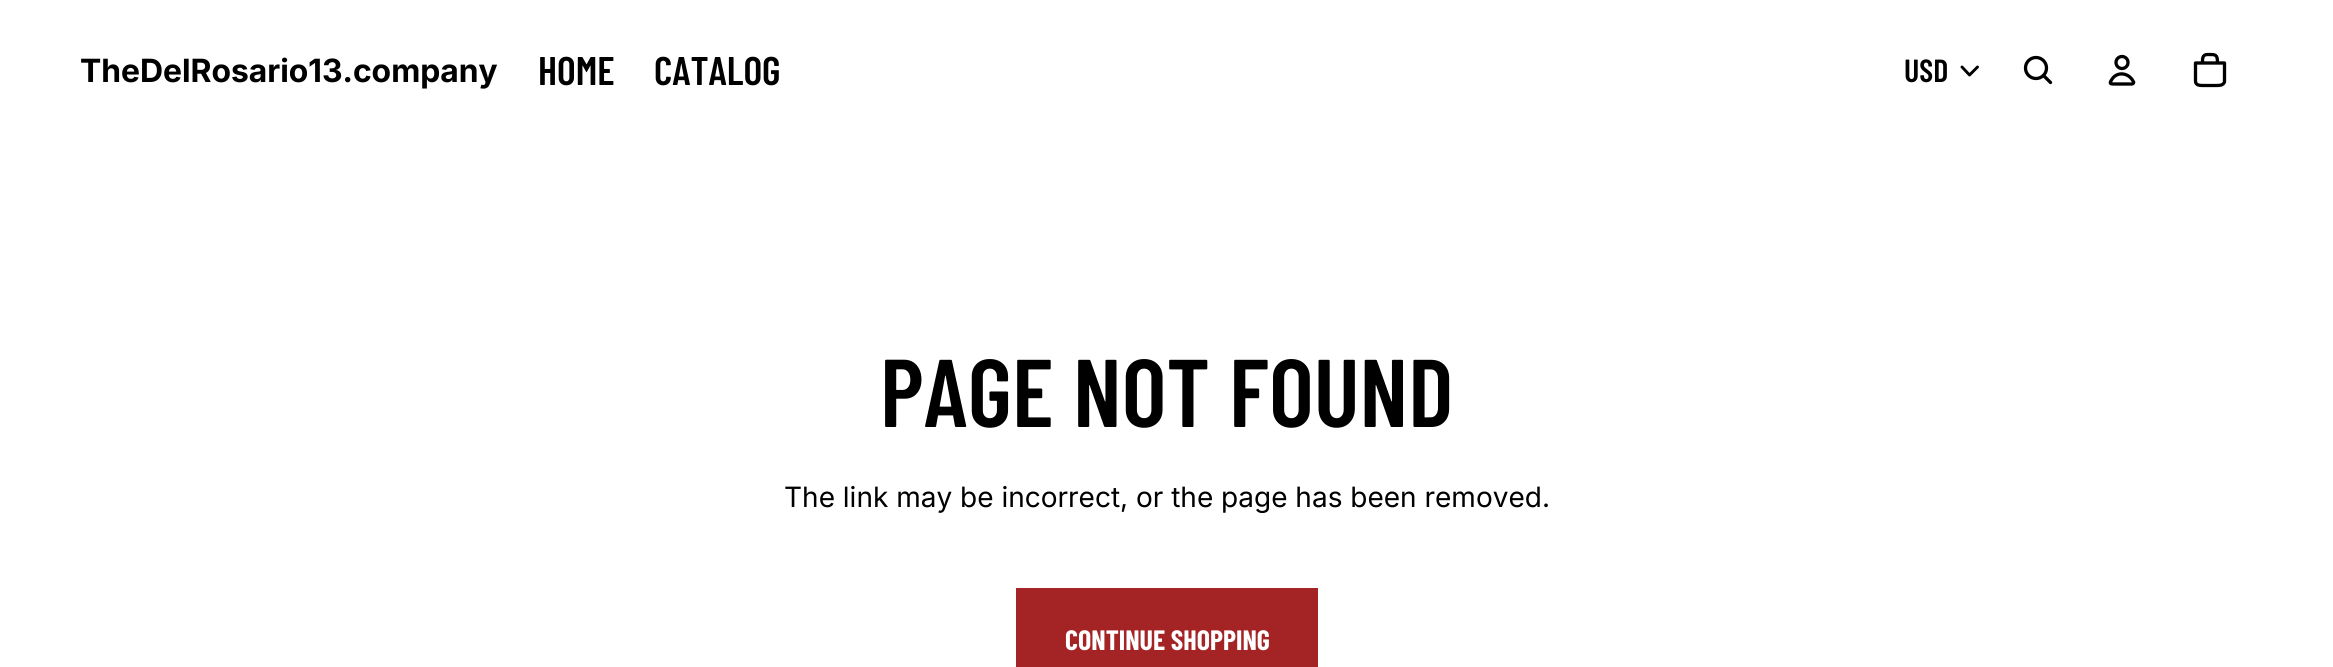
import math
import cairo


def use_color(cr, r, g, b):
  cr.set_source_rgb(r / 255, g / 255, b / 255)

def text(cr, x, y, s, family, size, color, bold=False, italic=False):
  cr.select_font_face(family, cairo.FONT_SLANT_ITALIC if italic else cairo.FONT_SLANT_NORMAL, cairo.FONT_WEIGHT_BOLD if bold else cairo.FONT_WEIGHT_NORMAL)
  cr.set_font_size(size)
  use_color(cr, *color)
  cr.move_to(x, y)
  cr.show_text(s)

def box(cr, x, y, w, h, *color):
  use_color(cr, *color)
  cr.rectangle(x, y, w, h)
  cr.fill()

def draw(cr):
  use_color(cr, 255, 255, 255)
  cr.paint()
  cr.new_path()
  cr.move_to(1977.5, 67)
  cr.line_to(1969.5, 75)
  cr.line_to(1962, 67)
  use_color(cr, 0, 0, 0)
  cr.set_line_width(2.9)
  cr.set_line_cap(cairo.LINE_CAP_ROUND)
  cr.set_line_join(cairo.LINE_JOIN_ROUND)
  cr.stroke()
  cr.arc(2036, 68, 10.5, 0, 2 * math.pi)
  cr.set_line_width(3.3)
  cr.set_line_cap(cairo.LINE_CAP_BUTT)
  cr.set_line_join(cairo.LINE_JOIN_MITER)
  cr.stroke()
  cr.new_path()
  cr.move_to(2043.5, 75.5)
  cr.line_to(2050.5, 82.5)
  cr.set_line_cap(cairo.LINE_CAP_ROUND)
  cr.set_line_join(cairo.LINE_JOIN_ROUND)
  cr.stroke()
  cr.arc(2122, 62.5, 6, 0, 2 * math.pi)
  cr.set_line_cap(cairo.LINE_CAP_BUTT)
  cr.set_line_join(cairo.LINE_JOIN_MITER)
  cr.stroke()
  cr.new_path()
  cr.move_to(2111.5, 80)
  cr.curve_to(2109, 84, 2110.5, 84, 2115, 84)
  cr.line_to(2129, 84)
  cr.curve_to(2129.5, 84, 2133, 84.5, 2133.5, 83)
  cr.curve_to(2134, 82.5, 2133.5, 81.5, 2133, 81)
  cr.curve_to(2128.5, 72.5, 2116.5, 71, 2111.5, 80)
  cr.set_line_cap(cairo.LINE_CAP_ROUND)
  cr.set_line_join(cairo.LINE_JOIN_ROUND)
  cr.stroke()
  cr.new_path()
  cr.move_to(2195.5, 63)
  cr.line_to(2224.5, 63)
  cr.line_to(2224.5, 82)
  cr.curve_to(2223, 85.5, 2219.5, 85.5, 2216.5, 85.5)
  cr.line_to(2203.5, 85.5)
  cr.curve_to(2200, 85.5, 2195.5, 85.5, 2195.5, 81)
  cr.close_path()
  cr.move_to(2207.5, 54.5)
  cr.curve_to(2215.5, 54.5, 2217.5, 54, 2217.5, 63)
  cr.line_to(2202.5, 63)
  cr.curve_to(2202.5, 59.5, 2202, 54.5, 2207.5, 54.5)
  cr.stroke()
  box(cr, 1016, 588, 302, 79, 164, 35, 37)
  text(cr, 80, 82, "TheDelRosario13.company", "Inter", 32, (0, 0, 0), bold=True)
  text(cr, 538, 85, "HOME", "Barlow Condensed SemiBold", 40, (0, 0, 0))
  text(cr, 654, 85, "CATALOG", "Barlow Condensed SemiBold", 40, (0, 0, 0))
  text(cr, 1904, 82, "USD", "Barlow Condensed SemiBold", 32, (0, 0, 0))
  text(cr, 880, 427, "PAGE NOT FOUND", "Barlow Condensed SemiBold", 96, (0, 0, 0))
  text(cr, 784, 507, "The link may be incorrect, or the page has been removed.", "Inter", 28, (0, 0, 0))
  text(cr, 1065, 650, "CONTINUE SHOPPING", "Barlow Condensed", 28, (255, 255, 255), bold=True)


surface = cairo.ImageSurface(cairo.FORMAT_RGB24, 2333, 667)
cr = cairo.Context(surface)
options = cairo.FontOptions()
options.set_hint_metrics(cairo.HINT_METRICS_OFF)
options.set_hint_style(cairo.HINT_STYLE_NONE)
cr.set_font_options(options)
cr.set_miter_limit(4)
draw(cr)
surface.write_to_png("out.png")
